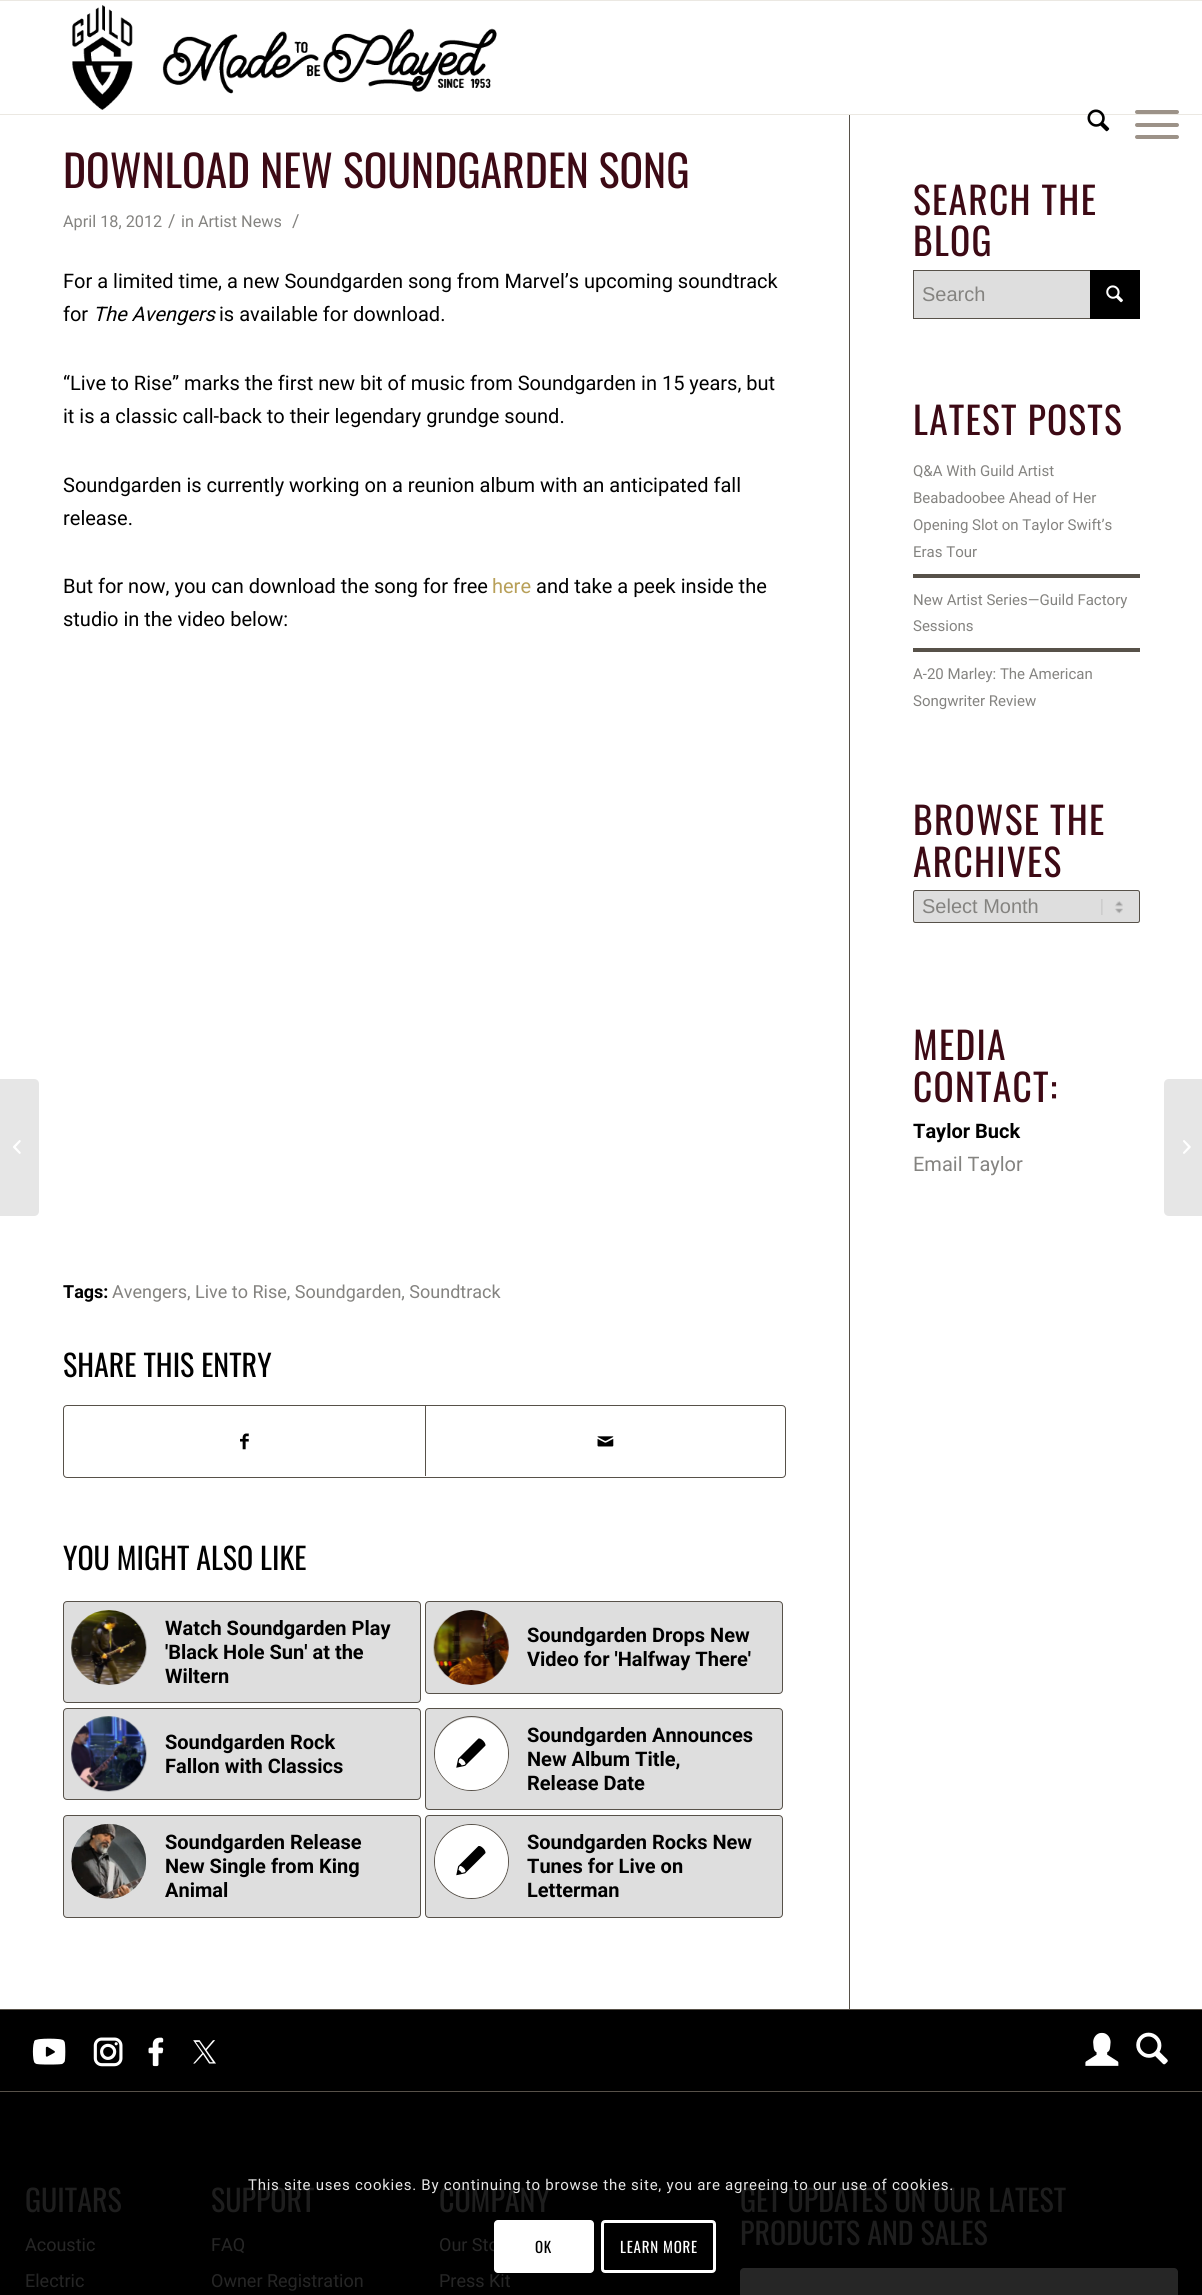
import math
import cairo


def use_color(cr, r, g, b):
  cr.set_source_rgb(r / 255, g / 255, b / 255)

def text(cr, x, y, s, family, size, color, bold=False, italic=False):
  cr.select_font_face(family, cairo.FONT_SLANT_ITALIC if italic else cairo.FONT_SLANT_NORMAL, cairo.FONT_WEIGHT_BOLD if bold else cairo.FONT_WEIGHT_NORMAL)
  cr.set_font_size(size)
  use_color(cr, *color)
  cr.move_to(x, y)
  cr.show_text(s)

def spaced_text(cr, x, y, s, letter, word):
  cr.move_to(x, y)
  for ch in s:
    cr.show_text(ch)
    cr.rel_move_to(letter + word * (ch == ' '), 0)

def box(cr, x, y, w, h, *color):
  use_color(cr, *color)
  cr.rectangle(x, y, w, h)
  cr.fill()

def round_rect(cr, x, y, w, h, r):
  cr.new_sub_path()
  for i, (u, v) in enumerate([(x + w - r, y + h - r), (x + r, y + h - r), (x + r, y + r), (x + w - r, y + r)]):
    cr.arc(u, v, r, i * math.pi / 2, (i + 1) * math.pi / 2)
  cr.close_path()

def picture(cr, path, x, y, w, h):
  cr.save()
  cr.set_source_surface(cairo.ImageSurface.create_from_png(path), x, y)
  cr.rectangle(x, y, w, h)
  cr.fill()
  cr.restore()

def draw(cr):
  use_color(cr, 255, 255, 255)
  cr.paint()
  box(cr, 0, 0, 1202, 1, 235, 232, 226)
  box(cr, 0, 114, 1202, 1, 235, 232, 226)
  picture(cr, "img_01.png", 72, 5, 425, 105)
  picture(cr, "img_02.png", 1087, 109, 23, 23)
  use_color(cr, 156, 146, 136)
  round_rect(cr, 1135, 123, 44, 4, 2)
  cr.fill()
  round_rect(cr, 1135, 110, 44, 4, 2)
  cr.fill()
  round_rect(cr, 1135, 135, 44, 4, 2)
  cr.fill()
  use_color(cr, 230, 230, 230)
  cr.new_path()
  cr.move_to(0, 1079)
  cr.line_to(34, 1079)
  cr.curve_to(37, 1079, 39, 1081, 39, 1084)
  cr.line_to(39, 1211)
  cr.curve_to(39, 1214, 37, 1216, 34, 1216)
  cr.line_to(0, 1216)
  cr.close_path()
  cr.fill()
  picture(cr, "img_03.png", 13, 1140, 8, 14)
  box(cr, 849, 115, 1, 1894, 87, 81, 73)
  round_rect(cr, 63.5, 1405.5, 722, 72, 3.5)
  cr.set_line_width(1)
  cr.stroke()
  picture(cr, "img_04.png", 240, 1433, 9, 17)
  box(cr, 425, 1406, 1, 70, 87, 81, 73)
  picture(cr, "img_05.png", 597, 1436, 17, 11)
  use_color(cr, 222, 222, 222)
  round_rect(cr, 63.5, 1601.5, 357, 101, 3.5)
  cr.fill_preserve()
  use_color(cr, 87, 81, 73)
  cr.stroke()
  picture(cr, "img_06.png", 71, 1610, 76, 75)
  use_color(cr, 222, 222, 222)
  round_rect(cr, 425.5, 1601.5, 357, 92, 3.5)
  cr.fill_preserve()
  use_color(cr, 87, 81, 73)
  cr.stroke()
  picture(cr, "img_07.png", 433, 1610, 76, 75)
  use_color(cr, 222, 222, 222)
  round_rect(cr, 63.5, 1708.5, 357, 91, 3.5)
  cr.fill_preserve()
  use_color(cr, 87, 81, 73)
  cr.stroke()
  picture(cr, "img_08.png", 71, 1716, 76, 76)
  use_color(cr, 222, 222, 222)
  round_rect(cr, 425.5, 1708.5, 357, 101, 3.5)
  cr.fill_preserve()
  use_color(cr, 87, 81, 73)
  cr.stroke()
  cr.arc(471.5, 1753.5, 37, 0, 2 * math.pi)
  cr.stroke()
  use_color(cr, 255, 255, 255)
  round_rect(cr, 435, 1718, 73, 72, 36)
  cr.fill()
  picture(cr, "img_09.png", 456, 1738, 30, 30)
  use_color(cr, 222, 222, 222)
  round_rect(cr, 63.5, 1815.5, 357, 102, 3.5)
  cr.fill_preserve()
  use_color(cr, 87, 81, 73)
  cr.stroke()
  picture(cr, "img_10.png", 71, 1823, 76, 76)
  use_color(cr, 222, 222, 222)
  round_rect(cr, 425.5, 1815.5, 357, 102, 3.5)
  cr.fill_preserve()
  use_color(cr, 87, 81, 73)
  cr.stroke()
  cr.arc(471.5, 1861.5, 37, 0, 2 * math.pi)
  cr.stroke()
  use_color(cr, 255, 255, 255)
  cr.arc(471.5, 1861.5, 36.5, 0, 2 * math.pi)
  cr.fill()
  picture(cr, "img_11.png", 456, 1846, 30, 30)
  box(cr, 914, 271, 176, 47, 222, 222, 222)
  cr.rectangle(913.5, 270.5, 226, 48)
  use_color(cr, 87, 81, 73)
  cr.stroke()
  box(cr, 1090, 270, 50, 49, 0, 0, 0)
  picture(cr, "img_12.png", 1106, 285, 17, 18)
  box(cr, 913, 574, 227, 4, 87, 81, 73)
  box(cr, 913, 648, 227, 4, 87, 81, 73)
  use_color(cr, 222, 222, 222)
  round_rect(cr, 913, 890, 227, 33, 2.5)
  cr.fill()
  picture(cr, "img_13.png", 1101, 899, 22, 16)
  round_rect(cr, 913.5, 890.5, 226, 32, 2)
  use_color(cr, 87, 81, 73)
  cr.stroke()
  box(cr, 0, 2010, 1202, 285, 0, 0, 0)
  box(cr, 0, 2009, 1202, 1, 87, 81, 73)
  picture(cr, "img_14.png", 32, 2038, 34, 27)
  picture(cr, "img_15.png", 93, 2037, 30, 30)
  picture(cr, "img_16.png", 148, 2037, 16, 30)
  picture(cr, "img_17.png", 193, 2040, 23, 24)
  picture(cr, "img_18.png", 1085, 2032, 34, 34)
  picture(cr, "img_19.png", 1136, 2032, 32, 33)
  box(cr, 0, 2091, 1202, 1, 87, 81, 73)
  use_color(cr, 38, 38, 38)
  round_rect(cr, 740, 2268, 438, 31, 4)
  cr.fill()
  use_color(cr, 230, 230, 230)
  cr.new_path()
  cr.move_to(1169, 1079)
  cr.line_to(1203, 1079)
  cr.line_to(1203, 1216)
  cr.line_to(1169, 1216)
  cr.curve_to(1166, 1216, 1164, 1214, 1164, 1211)
  cr.line_to(1164, 1084)
  cr.curve_to(1164, 1081, 1166, 1079, 1169, 1079)
  cr.close_path()
  cr.fill()
  picture(cr, "img_20.png", 1183, 1140, 8, 14)
  round_rect(cr, 602.5, 2221.5, 112, 50, 2.5)
  use_color(cr, 255, 255, 255)
  cr.set_line_width(3)
  cr.stroke()
  text(cr, 63, 188, "DOWNLOAD NEW SOUNDGARDEN SONG", "Oswald", 43.75, (61, 10, 21))
  text(cr, 63, 227, "April 18, 2012", "Roboto", 16.25, (132, 131, 128))
  text(cr, 168, 227, "/", "Roboto", 18, (132, 131, 128))
  text(cr, 181, 227, "in Artist News", "Roboto", 16.25, (132, 131, 128))
  text(cr, 292, 227, "/", "Roboto", 18, (132, 131, 128))
  text(cr, 63, 288, "For a limited time, a new Soundgarden song from Marvel’s upcoming soundtrack", "Roboto", 20, (0, 0, 0))
  text(cr, 63, 321, "for", "Roboto", 20, (0, 0, 0))
  text(cr, 93, 321, "The Avengers", "Roboto", 20, (0, 0, 0), italic=True)
  text(cr, 219, 321, "is available for download.", "Roboto", 20, (0, 0, 0))
  text(cr, 63, 390, "“Live to Rise” marks the first new bit of music from Soundgarden in 15 years, but", "Roboto", 20, (0, 0, 0))
  text(cr, 63, 423, "it is a classic call-back to their legendary grundge sound.", "Roboto", 20, (0, 0, 0))
  text(cr, 63, 492, "Soundgarden is currently working on a reunion album with an anticipated fall", "Roboto", 20, (0, 0, 0))
  text(cr, 63, 525, "release.", "Roboto", 20, (0, 0, 0))
  text(cr, 63, 593, "But for now, you can download the song for free", "Roboto", 20, (0, 0, 0))
  text(cr, 492, 593, "here", "Roboto", 20, (184, 160, 89))
  text(cr, 536, 593, "and take a peek inside the", "Roboto", 20, (0, 0, 0))
  text(cr, 63, 626, "studio in the video below:", "Roboto", 20, (0, 0, 0))
  text(cr, 63, 1298, "Tags:", "Roboto", 18, (0, 0, 0), bold=True)
  text(cr, 112, 1298, "Avengers, Live to Rise, Soundgarden, Soundtrack", "Roboto", 18, (132, 131, 128))
  text(cr, 63, 1377, "SHARE THIS ENTRY", "Oswald", 30, (0, 0, 0))
  text(cr, 63, 1570, "YOU MIGHT ALSO LIKE", "Oswald", 30, (0, 0, 0))
  text(cr, 165, 1635, "Watch Soundgarden Play", "Roboto", 20, (0, 0, 0), bold=True)
  text(cr, 165, 1659, "'Black Hole Sun' at the", "Roboto", 20, (0, 0, 0), bold=True)
  text(cr, 165, 1683, "Wiltern", "Roboto", 20, (0, 0, 0), bold=True)
  text(cr, 527, 1642, "Soundgarden Drops New", "Roboto", 20, (0, 0, 0), bold=True)
  text(cr, 527, 1666, "Video for 'Halfway There'", "Roboto", 20, (0, 0, 0), bold=True)
  text(cr, 165, 1749, "Soundgarden Rock", "Roboto", 20, (0, 0, 0), bold=True)
  text(cr, 165, 1773, "Fallon with Classics", "Roboto", 20, (0, 0, 0), bold=True)
  text(cr, 527, 1742, "Soundgarden Announces", "Roboto", 20, (0, 0, 0), bold=True)
  text(cr, 527, 1766, "New Album Title,", "Roboto", 20, (0, 0, 0), bold=True)
  text(cr, 527, 1790, "Release Date", "Roboto", 20, (0, 0, 0), bold=True)
  text(cr, 165, 1849, "Soundgarden Release", "Roboto", 20, (0, 0, 0), bold=True)
  text(cr, 165, 1873, "New Single from King", "Roboto", 20, (0, 0, 0), bold=True)
  text(cr, 165, 1897, "Animal", "Roboto", 20, (0, 0, 0), bold=True)
  text(cr, 527, 1849, "Soundgarden Rocks New", "Roboto", 20, (0, 0, 0), bold=True)
  text(cr, 527, 1873, "Tunes for Live on", "Roboto", 20, (0, 0, 0), bold=True)
  text(cr, 527, 1897, "Letterman", "Roboto", 20, (0, 0, 0), bold=True)
  cr.select_font_face("Oswald")
  cr.set_font_size(37.5)
  use_color(cr, 61, 10, 21)
  spaced_text(cr, 913, 215, "SEARCH THE", 1.25, 0)
  spaced_text(cr, 913, 256, "BLOG", 1.25, 0)
  text(cr, 922, 301, "Search", "Liberation Sans", 20, (132, 131, 128))
  cr.select_font_face("Oswald")
  cr.set_font_size(37.5)
  use_color(cr, 61, 10, 21)
  spaced_text(cr, 913, 435, "LATEST POSTS", 1.25, 0)
  text(cr, 913, 476, "Q&A With Guild Artist", "Roboto", 15, (132, 131, 128))
  text(cr, 913, 503, "Beabadoobee Ahead of Her", "Roboto", 15, (132, 131, 128))
  text(cr, 913, 530, "Opening Slot on Taylor Swift’s", "Roboto", 15, (132, 131, 128))
  text(cr, 913, 557, "Eras Tour", "Roboto", 15, (132, 131, 128))
  text(cr, 913, 605, "New Artist Series—Guild Factory", "Roboto", 15, (132, 131, 128))
  text(cr, 913, 631, "Sessions", "Roboto", 15, (132, 131, 128))
  text(cr, 913, 679, "A-20 Marley: The American", "Roboto", 15, (132, 131, 128))
  text(cr, 913, 706, "Songwriter Review", "Roboto", 15, (132, 131, 128))
  cr.select_font_face("Oswald")
  cr.set_font_size(37.5)
  use_color(cr, 61, 10, 21)
  spaced_text(cr, 913, 835, "BROWSE THE", 1.25, 0)
  spaced_text(cr, 913, 877, "ARCHIVES", 1.25, 0)
  text(cr, 922, 913, "Select Month", "Liberation Sans", 20, (132, 131, 128))
  cr.select_font_face("Oswald")
  cr.set_font_size(37.5)
  use_color(cr, 61, 10, 21)
  spaced_text(cr, 913, 1060, "MEDIA", 1.25, 0)
  spaced_text(cr, 913, 1102, "CONTACT:", 1.25, 0)
  text(cr, 913, 1138, "Taylor Buck", "Roboto", 20, (0, 0, 0), bold=True)
  text(cr, 913, 1171, "Email Taylor", "Roboto", 20, (132, 131, 128))
  text(cr, 25, 2212, "GUITARS", "Oswald", 30, (30, 30, 30))
  text(cr, 25, 2251, "Acoustic", "Roboto", 18, (38, 38, 38))
  text(cr, 25, 2287, "Electric", "Roboto", 18, (38, 38, 38))
  text(cr, 211, 2212, "SUPPORT", "Oswald", 30, (30, 30, 30))
  text(cr, 211, 2251, "FAQ", "Roboto", 18, (38, 38, 38))
  text(cr, 211, 2287, "Owner Registration", "Roboto", 18, (38, 38, 38))
  text(cr, 439, 2212, "COMPANY", "Oswald", 30, (30, 30, 30))
  text(cr, 439, 2251, "Our Sto", "Roboto", 18, (38, 38, 38))
  text(cr, 439, 2287, "Press Kit", "Roboto", 18, (38, 38, 38))
  text(cr, 740, 2212, "GET UPDATES ON OUR LATEST", "Oswald", 30, (30, 30, 30))
  text(cr, 740, 2245, "PRODUCTS AND SALES", "Oswald", 30, (30, 30, 30))
  cr.select_font_face("Roboto")
  cr.set_font_size(15)
  use_color(cr, 230, 230, 230)
  spaced_text(cr, 248, 2190, "This site uses cookies. By continuing to browse the site, you are agreeing to our use of cookies.", 0.75, 0)
  use_color(cr, 255, 255, 255)
  round_rect(cr, 494, 2220, 100, 53, 4)
  cr.fill()
  cr.select_font_face("Oswald")
  use_color(cr, 0, 0, 0)
  spaced_text(cr, 535, 2253, "OK", 0.75, 0)
  use_color(cr, 255, 255, 255)
  spaced_text(cr, 620, 2253, "LEARN MORE", 0.75, 0)


surface = cairo.ImageSurface(cairo.FORMAT_RGB24, 1202, 2295)
cr = cairo.Context(surface)
options = cairo.FontOptions()
options.set_hint_metrics(cairo.HINT_METRICS_OFF)
options.set_hint_style(cairo.HINT_STYLE_NONE)
cr.set_font_options(options)
cr.set_miter_limit(4)
draw(cr)
surface.write_to_png("out.png")
